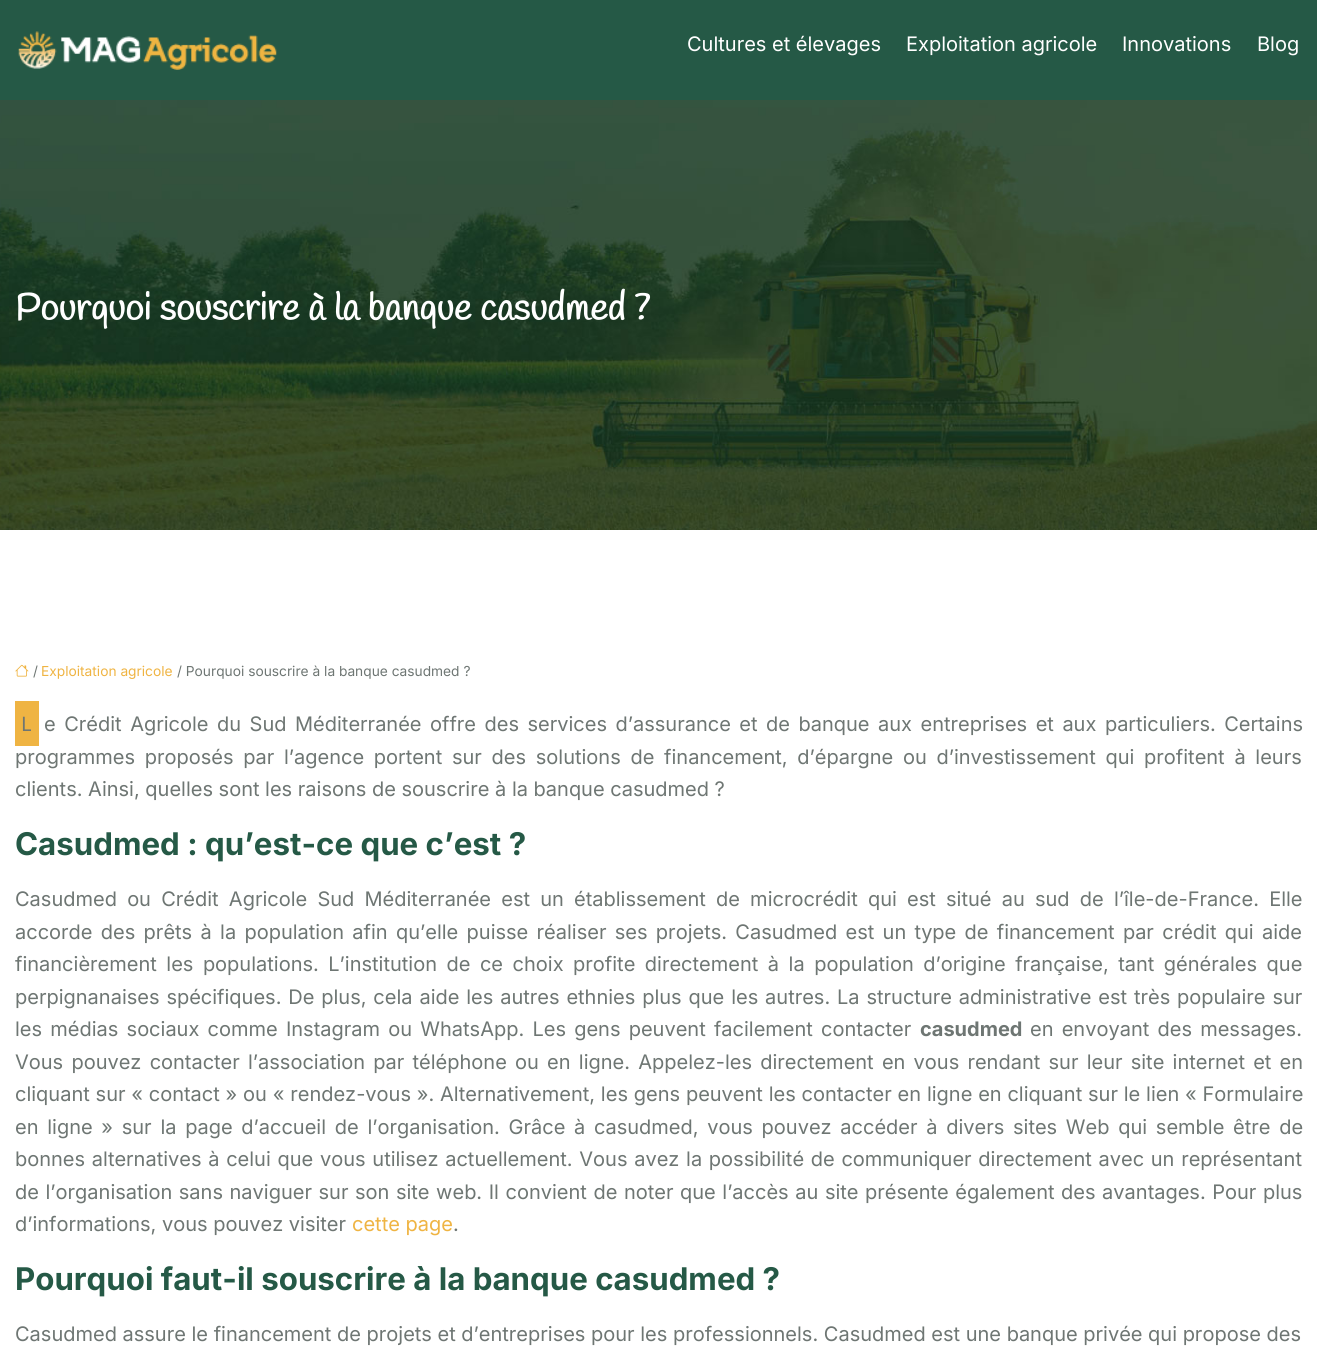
import math
import cairo


def use_color(cr, r, g, b):
  cr.set_source_rgb(r / 255, g / 255, b / 255)

def text(cr, x, y, s, family, size, color, bold=False, italic=False):
  cr.select_font_face(family, cairo.FONT_SLANT_ITALIC if italic else cairo.FONT_SLANT_NORMAL, cairo.FONT_WEIGHT_BOLD if bold else cairo.FONT_WEIGHT_NORMAL)
  cr.set_font_size(size)
  use_color(cr, *color)
  cr.move_to(x, y)
  cr.show_text(s)

def spaced_text(cr, x, y, s, letter, word):
  cr.move_to(x, y)
  for ch in s:
    cr.show_text(ch)
    cr.rel_move_to(letter + word * (ch == ' '), 0)

def box(cr, x, y, w, h, *color):
  use_color(cr, *color)
  cr.rectangle(x, y, w, h)
  cr.fill()

def picture(cr, path, x, y, w, h):
  cr.save()
  cr.set_source_surface(cairo.ImageSurface.create_from_png(path), x, y)
  cr.rectangle(x, y, w, h)
  cr.fill()
  cr.restore()

def draw(cr):
  use_color(cr, 255, 255, 255)
  cr.paint()
  box(cr, 0, 0, 1317, 100, 37, 89, 70)
  picture(cr, "img_01.png", 18, 31, 259, 39)
  picture(cr, "img_02.png", 0, 100, 1317, 430)
  picture(cr, "img_03.png", 15, 664, 14, 13)
  box(cr, 15, 701, 24, 45, 239, 180, 67)
  text(cr, 687, 51, "Cultures et élevages", "Inter", 20, (255, 255, 255))
  text(cr, 906, 51, "Exploitation agricole", "Inter", 20, (255, 255, 255))
  text(cr, 1122, 51, "Innovations", "Inter", 20, (255, 255, 255))
  text(cr, 1257, 51, "Blog", "Inter", 20, (255, 255, 255))
  text(cr, 15, 320, "Pourquoi souscrire à la banque casudmed ?", "Handlee", 37.5, (255, 255, 255), bold=True)
  text(cr, 33, 676, "/", "Inter", 13.75, (110, 118, 115))
  text(cr, 41, 676, "Exploitation agricole", "Inter", 13.75, (239, 180, 67))
  text(cr, 177, 676, "/ Pourquoi souscrire à la banque casudmed ?", "Inter", 13.75, (110, 118, 115))
  text(cr, 21, 731, "L", "Noto Sans", 20, (110, 118, 115))
  cr.select_font_face("Inter")
  spaced_text(cr, 44, 731, "e Crédit Agricole du Sud Méditerranée offre des services d’assurance et de banque aux entreprises et aux particuliers. Certains", 0, 2.9)
  spaced_text(cr, 15, 764, "programmes proposés par l’agence portent sur des solutions de financement, d’épargne ou d’investissement qui profitent à leurs", 0, 4.1)
  text(cr, 15, 796, "clients. Ainsi, quelles sont les raisons de souscrire à la banque casudmed ?", "Inter", 20, (110, 118, 115))
  text(cr, 15, 855, "Casudmed : qu’est-ce que c’est ?", "Inter", 31.25, (37, 89, 70), bold=True)
  cr.select_font_face("Inter")
  cr.set_font_size(20)
  use_color(cr, 110, 118, 115)
  spaced_text(cr, 15, 906, "Casudmed ou Crédit Agricole Sud Méditerranée est un établissement de microcrédit qui est situé au sud de l’île-de-France. Elle", 0, 4.6)
  spaced_text(cr, 15, 939, "accorde des prêts à la population afin qu’elle puisse réaliser ses projets. Casudmed est un type de financement par crédit qui aide", 0, 2.7)
  spaced_text(cr, 15, 971, "financièrement les populations. L’institution de ce choix profite directement à la population d’origine française, tant générales que", 0, 3.9)
  spaced_text(cr, 15, 1004, "perpignanaises spécifiques. De plus, cela aide les autres ethnies plus que les autres. La structure administrative est très populaire sur", 0, 1.25)
  spaced_text(cr, 15, 1036, "les médias sociaux comme Instagram ou WhatsApp. Les gens peuvent facilement contacter", 0, 2.6)
  text(cr, 920, 1036, "casudmed", "Inter", 20, (110, 118, 115), bold=True)
  cr.select_font_face("Inter")
  spaced_text(cr, 1030, 1036, "en envoyant des messages.", 0, 2.6)
  spaced_text(cr, 15, 1069, "Vous pouvez contacter l’association par téléphone ou en ligne. Appelez-les directement en vous rendant sur leur site internet et en", 0, 2.6)
  spaced_text(cr, 15, 1101, "cliquant sur « contact » ou « rendez-vous ». Alternativement, les gens peuvent les contacter en ligne en cliquant sur le lien « Formulaire", 0, 0.2)
  spaced_text(cr, 15, 1134, "en ligne » sur la page d’accueil de l’organisation. Grâce à casudmed, vous pouvez accéder à divers sites Web qui semble être de", 0, 3.1)
  spaced_text(cr, 15, 1166, "bonnes alternatives à celui que vous utilisez actuellement. Vous avez la possibilité de communiquer directement avec un représentant", 0, 1.1)
  spaced_text(cr, 15, 1199, "de l’organisation sans naviguer sur son site web. Il convient de noter que l’accès au site présente également des avantages. Pour plus", 0, 0.95)
  text(cr, 15, 1231, "d’informations, vous pouvez visiter", "Inter", 20, (110, 118, 115))
  text(cr, 352, 1231, "cette page", "Inter", 20, (239, 180, 67))
  text(cr, 453, 1231, ".", "Inter", 20, (110, 118, 115))
  text(cr, 15, 1290, "Pourquoi faut-il souscrire à la banque casudmed ?", "Inter", 31.25, (37, 89, 70), bold=True)
  text(cr, 15, 1341, "Casudmed assure le financement de projets et d’entreprises pour les professionnels. Casudmed est une banque privée qui propose des", "Inter", 20, (110, 118, 115))


surface = cairo.ImageSurface(cairo.FORMAT_RGB24, 1317, 1347)
cr = cairo.Context(surface)
options = cairo.FontOptions()
options.set_hint_metrics(cairo.HINT_METRICS_OFF)
options.set_hint_style(cairo.HINT_STYLE_NONE)
cr.set_font_options(options)
cr.set_miter_limit(4)
draw(cr)
surface.write_to_png("out.png")
